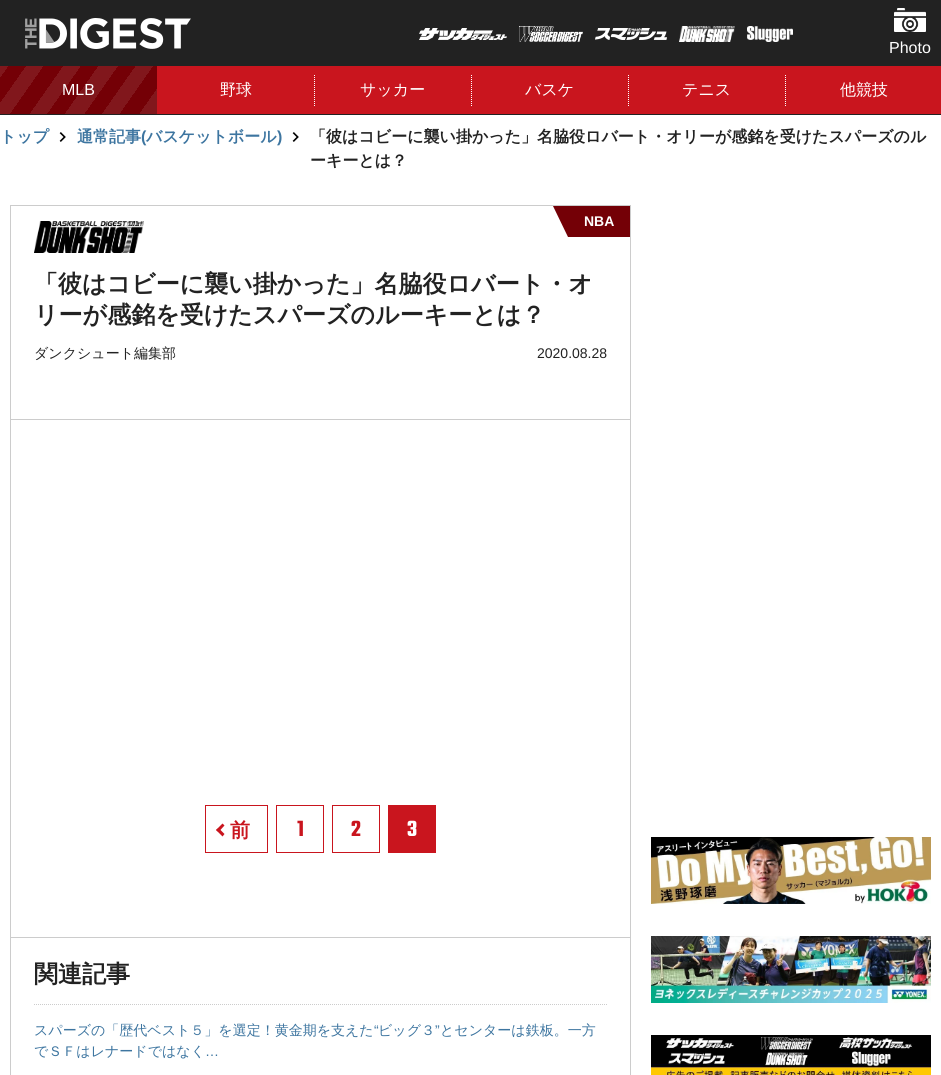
import math
import cairo


def use_color(cr, r, g, b):
  cr.set_source_rgb(r / 255, g / 255, b / 255)

def text(cr, x, y, s, family, size, color, bold=False, italic=False):
  cr.select_font_face(family, cairo.FONT_SLANT_ITALIC if italic else cairo.FONT_SLANT_NORMAL, cairo.FONT_WEIGHT_BOLD if bold else cairo.FONT_WEIGHT_NORMAL)
  cr.set_font_size(size)
  use_color(cr, *color)
  cr.move_to(x, y)
  cr.show_text(s)

def box(cr, x, y, w, h, *color):
  use_color(cr, *color)
  cr.rectangle(x, y, w, h)
  cr.fill()

def picture(cr, path, x, y, w, h):
  cr.save()
  cr.set_source_surface(cairo.ImageSurface.create_from_png(path), x, y)
  cr.rectangle(x, y, w, h)
  cr.fill()
  cr.restore()

def draw(cr):
  use_color(cr, 255, 255, 255)
  cr.paint()
  box(cr, 0, 0, 941, 66, 34, 34, 34)
  picture(cr, "img_01.png", 25, 18, 166, 31)
  picture(cr, "img_02.png", 419, 28, 88, 12)
  picture(cr, "img_03.png", 519, 26, 64, 16)
  picture(cr, "img_04.png", 595, 28, 72, 12)
  picture(cr, "img_05.png", 679, 26, 56, 16)
  picture(cr, "img_06.png", 747, 26, 46, 16)
  picture(cr, "img_07.png", 894, 8, 32, 24)
  box(cr, 157, 66, 784, 48, 201, 21, 30)
  box(cr, 0, 114, 941, 1, 34, 34, 34)
  gradient = cairo.LinearGradient(142, 135, -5, 32)
  gradient.add_color_stop_rgba(0, 0.506, 0.09, 0.11, 1)
  gradient.add_color_stop_rgba(0.08, 0.506, 0.09, 0.11, 1)
  gradient.add_color_stop_rgba(0.08, 0.455, 0, 0.024, 1)
  gradient.add_color_stop_rgba(0.17, 0.455, 0, 0.024, 1)
  gradient.add_color_stop_rgba(0.17, 0.506, 0.09, 0.11, 1)
  gradient.add_color_stop_rgba(0.25, 0.506, 0.09, 0.11, 1)
  gradient.add_color_stop_rgba(0.25, 0.455, 0, 0.024, 1)
  gradient.add_color_stop_rgba(0.33, 0.455, 0, 0.024, 1)
  gradient.add_color_stop_rgba(0.33, 0.506, 0.09, 0.11, 1)
  gradient.add_color_stop_rgba(0.42, 0.506, 0.09, 0.11, 1)
  gradient.add_color_stop_rgba(0.42, 0.455, 0, 0.024, 1)
  gradient.add_color_stop_rgba(0.5, 0.455, 0, 0.024, 1)
  gradient.add_color_stop_rgba(0.5, 0.506, 0.09, 0.11, 1)
  gradient.add_color_stop_rgba(0.58, 0.506, 0.09, 0.11, 1)
  gradient.add_color_stop_rgba(0.58, 0.455, 0, 0.024, 1)
  gradient.add_color_stop_rgba(0.67, 0.455, 0, 0.024, 1)
  gradient.add_color_stop_rgba(0.67, 0.506, 0.09, 0.11, 1)
  gradient.add_color_stop_rgba(0.75, 0.506, 0.09, 0.11, 1)
  gradient.add_color_stop_rgba(0.75, 0.455, 0, 0.024, 1)
  gradient.add_color_stop_rgba(0.83, 0.455, 0, 0.024, 1)
  gradient.add_color_stop_rgba(0.83, 0.506, 0.09, 0.11, 1)
  gradient.add_color_stop_rgba(0.92, 0.506, 0.09, 0.11, 1)
  gradient.add_color_stop_rgba(0.92, 0.455, 0, 0.024, 1)
  gradient.add_color_stop_rgba(1, 0.455, 0, 0.024, 1)
  cr.set_source(gradient)
  cr.rectangle(0, 66, 157, 48)
  cr.fill()
  cr.new_path()
  cr.move_to(314.5, 75)
  cr.line_to(314.5, 106)
  use_color(cr, 255, 255, 255)
  cr.set_line_width(1)
  cr.set_dash([1, 1])
  cr.stroke()
  cr.new_path()
  cr.move_to(471.5, 75)
  cr.line_to(471.5, 106)
  cr.stroke()
  cr.new_path()
  cr.move_to(628.5, 75)
  cr.line_to(628.5, 106)
  cr.stroke()
  cr.new_path()
  cr.move_to(785.5, 75)
  cr.line_to(785.5, 106)
  cr.stroke()
  picture(cr, "img_08.png", 59, 132, 7, 10)
  picture(cr, "img_08.png", 292, 132, 7, 10)
  cr.rectangle(10.5, 205.5, 620, 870)
  use_color(cr, 204, 204, 204)
  cr.set_dash([])
  cr.stroke()
  box(cr, 11, 419, 619, 1, 204, 204, 204)
  picture(cr, "img_09.png", 34, 221, 110, 32)
  box(cr, 568, 206, 62, 31, 116, 0, 6)
  cr.new_path()
  cr.move_to(568, 206)
  cr.line_to(568, 237)
  cr.line_to(553, 206)
  cr.close_path()
  cr.fill()
  cr.rectangle(205.5, 805.5, 62, 47)
  use_color(cr, 201, 21, 30)
  cr.stroke()
  cr.new_path()
  cr.move_to(218.5, 828)
  cr.line_to(224.5, 834)
  cr.line_to(222.5, 836.5)
  cr.line_to(216, 830)
  cr.close_path()
  cr.fill()
  cr.new_path()
  cr.move_to(222.5, 823.5)
  cr.line_to(224.5, 825.5)
  cr.line_to(218.5, 832)
  cr.line_to(216, 830)
  cr.close_path()
  cr.fill()
  cr.rectangle(276.5, 805.5, 47, 47)
  cr.stroke()
  cr.rectangle(332.5, 805.5, 47, 47)
  cr.stroke()
  box(cr, 388, 805, 48, 48, 201, 21, 30)
  box(cr, 11, 937, 619, 1, 204, 204, 204)
  cr.new_path()
  cr.move_to(34, 1004.5)
  cr.line_to(607, 1004.5)
  cr.set_dash([1, 1])
  cr.stroke()
  picture(cr, "img_10.png", 651, 837, 280, 67)
  picture(cr, "img_11.png", 651, 936, 280, 67)
  picture(cr, "img_12.png", 651, 1035, 280, 40)
  text(cr, 889, 53, "Photo", "Liberation Sans", 16, (255, 255, 255))
  text(cr, 62, 95, "MLB", "Liberation Sans", 16, (255, 255, 255))
  text(cr, 220, 95, "野球", "WenQuanYi Zen Hei Medium", 16, (255, 255, 255))
  text(cr, 360, 95, "サッカー", "WenQuanYi Zen Hei Medium", 16, (255, 255, 255))
  text(cr, 525, 95, "バスケ", "WenQuanYi Zen Hei Medium", 16, (255, 255, 255))
  text(cr, 682, 95, "テニス", "WenQuanYi Zen Hei Medium", 16, (255, 255, 255))
  text(cr, 840, 95, "他競技", "WenQuanYi Zen Hei Medium", 16, (255, 255, 255))
  text(cr, 0, 142, "トップ", "WenQuanYi Zen Hei", 16, (61, 117, 160), bold=True)
  text(cr, 77, 142, "通常記事", "WenQuanYi Zen Hei", 16, (61, 117, 160), bold=True)
  text(cr, 141, 142, "(", "Liberation Sans", 16, (61, 117, 160), bold=True)
  text(cr, 146, 142, "バスケットボール", "WenQuanYi Zen Hei", 16, (61, 117, 160), bold=True)
  text(cr, 277, 142, ")", "Liberation Sans", 16, (61, 117, 160), bold=True)
  text(cr, 310, 142, "「彼はコビーに襲い掛かった」名脇役ロバート・オリーが感銘を受けたスパーズのル", "WenQuanYi Zen Hei", 16, (34, 34, 34), bold=True)
  text(cr, 310, 166, "ーキーとは？", "WenQuanYi Zen Hei", 16, (34, 34, 34), bold=True)
  text(cr, 584, 226, "NBA", "Liberation Sans", 14, (255, 255, 255), bold=True)
  text(cr, 34, 292, "「彼はコビーに襲い掛かった」名脇役ロバート・オ", "WenQuanYi Zen Hei", 24, (34, 34, 34), bold=True)
  text(cr, 34, 323, "リーが感銘を受けたスパーズのルーキーとは？", "WenQuanYi Zen Hei", 24, (34, 34, 34), bold=True)
  text(cr, 34, 358, "ダンクシュート編集部", "WenQuanYi Zen Hei Medium", 14, (34, 34, 34))
  text(cr, 537, 358, "2020.08.28", "Liberation Sans", 14, (34, 34, 34))
  text(cr, 230, 837, "前", "WenQuanYi Zen Hei", 20, (201, 21, 30), bold=True)
  text(cr, 297, 836, "1", "Teko SemiBold", 24, (201, 21, 30))
  text(cr, 351, 836, "2", "Teko SemiBold", 24, (201, 21, 30))
  text(cr, 407, 836, "3", "Teko SemiBold", 24, (255, 255, 255))
  text(cr, 34, 982, "関連記事", "WenQuanYi Zen Hei", 24, (34, 34, 34), bold=True)
  text(cr, 34, 1035, "スパーズの「歴代ベスト５」を選定！黄金期を支えた", "WenQuanYi Zen Hei Medium", 14, (61, 117, 160))
  text(cr, 374, 1035, "“", "Liberation Sans", 14, (61, 117, 160))
  text(cr, 378, 1035, "ビッグ３", "WenQuanYi Zen Hei Medium", 14, (61, 117, 160))
  text(cr, 435, 1035, "”", "Liberation Sans", 14, (61, 117, 160))
  text(cr, 440, 1035, "とセンターは鉄板。一方", "WenQuanYi Zen Hei Medium", 14, (61, 117, 160))
  text(cr, 34, 1056, "でＳＦはレナードではなく", "WenQuanYi Zen Hei Medium", 14, (61, 117, 160))
  text(cr, 205, 1056, "…", "Liberation Sans", 14, (61, 117, 160))


surface = cairo.ImageSurface(cairo.FORMAT_RGB24, 941, 1075)
cr = cairo.Context(surface)
options = cairo.FontOptions()
options.set_hint_metrics(cairo.HINT_METRICS_OFF)
options.set_hint_style(cairo.HINT_STYLE_NONE)
cr.set_font_options(options)
cr.set_miter_limit(4)
draw(cr)
surface.write_to_png("out.png")
